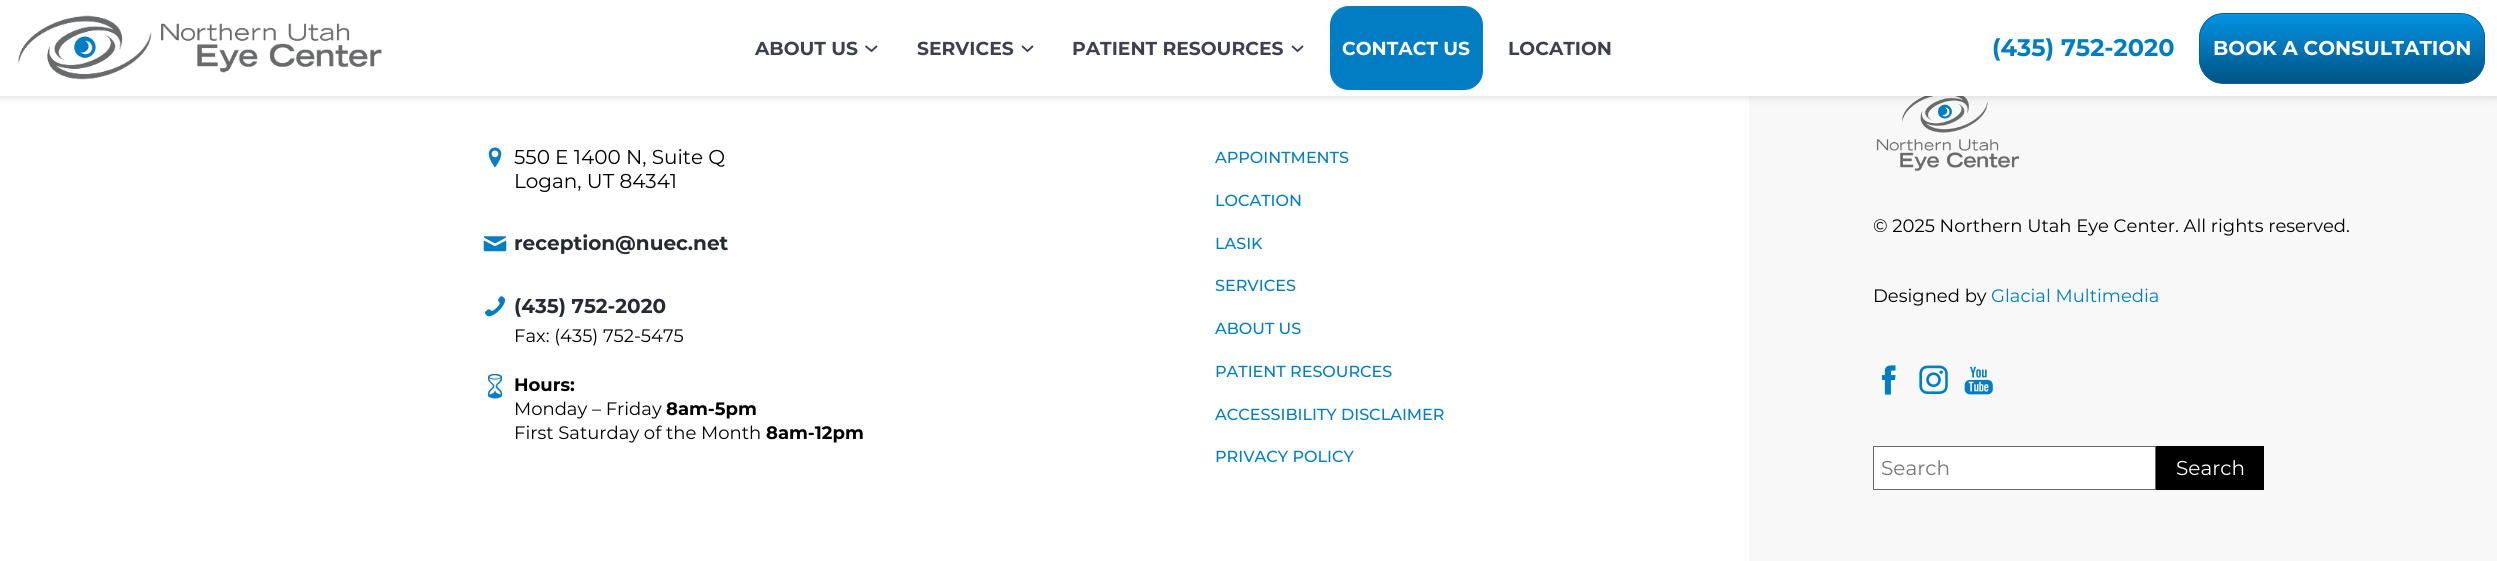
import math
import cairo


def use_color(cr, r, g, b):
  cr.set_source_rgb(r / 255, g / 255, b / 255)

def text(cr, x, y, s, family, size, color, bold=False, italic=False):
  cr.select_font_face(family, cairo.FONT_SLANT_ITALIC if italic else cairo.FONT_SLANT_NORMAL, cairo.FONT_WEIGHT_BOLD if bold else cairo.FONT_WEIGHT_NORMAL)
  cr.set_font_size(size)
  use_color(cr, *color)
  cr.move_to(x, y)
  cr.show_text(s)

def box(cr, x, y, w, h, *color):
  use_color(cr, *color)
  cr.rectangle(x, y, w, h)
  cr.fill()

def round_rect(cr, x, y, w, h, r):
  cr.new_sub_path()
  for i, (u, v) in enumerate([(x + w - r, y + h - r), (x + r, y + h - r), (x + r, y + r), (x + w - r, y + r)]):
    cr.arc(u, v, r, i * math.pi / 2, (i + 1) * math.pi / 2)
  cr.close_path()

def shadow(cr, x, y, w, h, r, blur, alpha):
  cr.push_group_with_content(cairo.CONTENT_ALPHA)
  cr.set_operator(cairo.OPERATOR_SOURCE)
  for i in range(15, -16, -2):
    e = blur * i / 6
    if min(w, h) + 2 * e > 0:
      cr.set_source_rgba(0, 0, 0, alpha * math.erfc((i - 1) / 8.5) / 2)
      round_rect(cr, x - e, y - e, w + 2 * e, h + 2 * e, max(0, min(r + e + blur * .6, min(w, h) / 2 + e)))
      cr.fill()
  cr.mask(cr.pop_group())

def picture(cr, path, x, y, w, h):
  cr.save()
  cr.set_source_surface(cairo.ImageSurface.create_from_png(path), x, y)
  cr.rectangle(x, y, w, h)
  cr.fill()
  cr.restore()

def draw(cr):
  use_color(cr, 255, 255, 255)
  cr.paint()
  box(cr, 1749, 96, 748, 465, 248, 248, 248)
  picture(cr, "img_06.png", 1876, 96, 143, 75)
  use_color(cr, 0, 0, 0)
  shadow(cr, 0, 0, 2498, 96, 0, 4.5, 0.17)
  box(cr, 0, 0, 2497, 96, 255, 255, 255)
  picture(cr, "img_01.png", 18, 15, 364, 65)
  cr.new_path()
  cr.move_to(865.5, 46)
  cr.line_to(871.5, 51)
  cr.line_to(877, 46)
  use_color(cr, 59, 66, 78)
  cr.set_line_width(1.9)
  cr.stroke()
  cr.new_path()
  cr.move_to(1022, 46)
  cr.line_to(1027.5, 51)
  cr.line_to(1033, 46)
  cr.stroke()
  cr.new_path()
  cr.move_to(1292, 46)
  cr.line_to(1297.5, 51)
  cr.line_to(1303, 46)
  cr.stroke()
  use_color(cr, 0, 125, 195)
  round_rect(cr, 1330, 6, 153, 84, 19)
  cr.fill()
  cr.save()
  round_rect(cr, 2199, 13, 286, 71, 25)
  cr.clip()
  gradient = cairo.LinearGradient(2342, 14, 2342, 83)
  gradient.add_color_stop_rgba(0, 0.016, 0.576, 0.894, 1)
  gradient.add_color_stop_rgba(1, 0, 0.329, 0.514, 1)
  cr.set_source(gradient)
  cr.rectangle(2199, 14, 286, 69)
  cr.fill()
  cr.restore()
  round_rect(cr, 2199.5, 13.5, 285, 70, 24.5)
  use_color(cr, 6, 98, 150)
  cr.set_line_width(1)
  cr.stroke()
  picture(cr, "img_02.png", 488, 147, 14, 21)
  picture(cr, "img_03.png", 483, 236, 24, 16)
  picture(cr, "img_04.png", 485, 296, 20, 21)
  picture(cr, "img_05.png", 488, 374, 14, 25)
  picture(cr, "img_07.png", 1881, 365, 15, 30)
  picture(cr, "img_08.png", 1919, 365, 29, 29)
  picture(cr, "img_09.png", 1964, 366, 29, 29)
  use_color(cr, 255, 255, 255)
  cr.rectangle(1873.5, 446.5, 282, 43)
  cr.fill_preserve()
  use_color(cr, 102, 102, 102)
  cr.stroke()
  box(cr, 2156, 446, 108, 44, 0, 0, 0)
  text(cr, 755, 55, "ABOUT US", "Montserrat", 18.75, (59, 66, 78), bold=True)
  text(cr, 917, 55, "SERVICES", "Montserrat", 18.75, (59, 66, 78), bold=True)
  text(cr, 1072, 55, "PATIENT RESOURCES", "Montserrat", 18.75, (59, 66, 78), bold=True)
  text(cr, 1342, 55, "CONTACT US", "Montserrat", 18.75, (255, 255, 255), bold=True)
  text(cr, 1508, 55, "LOCATION", "Montserrat", 18.75, (59, 66, 78), bold=True)
  text(cr, 1992, 56, "(435) 752-2020", "Montserrat", 24, (0, 125, 195), bold=True)
  text(cr, 2213, 55, "BOOK A CONSULTATION", "Montserrat", 20, (255, 255, 255), bold=True)
  text(cr, 514, 164, "550 E 1400 N, Suite Q", "Montserrat", 20, (0, 0, 0))
  text(cr, 514, 188, "Logan, UT 84341", "Montserrat", 20, (0, 0, 0))
  text(cr, 514, 250, "reception@nuec.net", "Montserrat", 20, (37, 42, 51), bold=True)
  text(cr, 514, 313, "(435) 752-2020", "Montserrat", 20, (37, 42, 51), bold=True)
  text(cr, 514, 342, "Fax: (435) 752-5475", "Montserrat", 18, (0, 0, 0))
  text(cr, 514, 391, "Hours:", "Montserrat", 18, (0, 0, 0), bold=True)
  text(cr, 514, 415, "Monday – Friday", "Montserrat", 18, (0, 0, 0))
  text(cr, 666, 415, "8am-5pm", "Montserrat", 18, (0, 0, 0), bold=True)
  text(cr, 514, 439, "First Saturday of the Month", "Montserrat", 18, (0, 0, 0))
  text(cr, 766, 439, "8am-12pm", "Montserrat", 18, (0, 0, 0), bold=True)
  text(cr, 1215, 163, "APPOINTMENTS", "Montserrat Medium", 16, (0, 125, 195))
  text(cr, 1215, 206, "LOCATION", "Montserrat Medium", 16, (0, 125, 195))
  text(cr, 1215, 249, "LASIK", "Montserrat Medium", 16, (0, 125, 195))
  text(cr, 1215, 291, "SERVICES", "Montserrat Medium", 16, (0, 125, 195))
  text(cr, 1215, 334, "ABOUT US", "Montserrat Medium", 16, (0, 125, 195))
  text(cr, 1215, 377, "PATIENT RESOURCES", "Montserrat Medium", 16, (0, 125, 195))
  text(cr, 1215, 420, "ACCESSIBILITY DISCLAIMER", "Montserrat Medium", 16, (0, 125, 195))
  text(cr, 1215, 462, "PRIVACY POLICY", "Montserrat Medium", 16, (0, 125, 195))
  text(cr, 1873, 232, "© 2025 Northern Utah Eye Center. All rights reserved.", "Montserrat", 18, (0, 0, 0))
  text(cr, 1873, 302, "Designed by", "Montserrat", 18, (0, 0, 0))
  text(cr, 1991, 302, "Glacial Multimedia", "Montserrat", 18, (0, 125, 195))
  text(cr, 1881, 475, "Search", "Montserrat", 20, (117, 117, 117))
  text(cr, 2176, 475, "Search", "Montserrat", 20, (255, 255, 255))


surface = cairo.ImageSurface(cairo.FORMAT_RGB24, 2497, 561)
cr = cairo.Context(surface)
options = cairo.FontOptions()
options.set_hint_metrics(cairo.HINT_METRICS_OFF)
options.set_hint_style(cairo.HINT_STYLE_NONE)
cr.set_font_options(options)
cr.set_miter_limit(4)
draw(cr)
surface.write_to_png("out.png")
